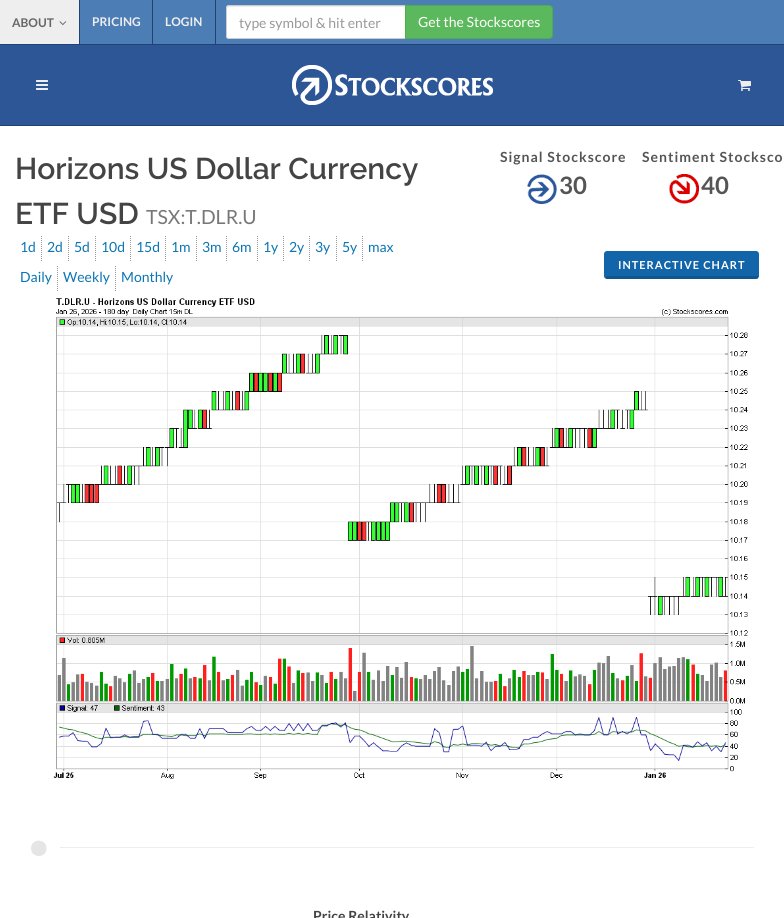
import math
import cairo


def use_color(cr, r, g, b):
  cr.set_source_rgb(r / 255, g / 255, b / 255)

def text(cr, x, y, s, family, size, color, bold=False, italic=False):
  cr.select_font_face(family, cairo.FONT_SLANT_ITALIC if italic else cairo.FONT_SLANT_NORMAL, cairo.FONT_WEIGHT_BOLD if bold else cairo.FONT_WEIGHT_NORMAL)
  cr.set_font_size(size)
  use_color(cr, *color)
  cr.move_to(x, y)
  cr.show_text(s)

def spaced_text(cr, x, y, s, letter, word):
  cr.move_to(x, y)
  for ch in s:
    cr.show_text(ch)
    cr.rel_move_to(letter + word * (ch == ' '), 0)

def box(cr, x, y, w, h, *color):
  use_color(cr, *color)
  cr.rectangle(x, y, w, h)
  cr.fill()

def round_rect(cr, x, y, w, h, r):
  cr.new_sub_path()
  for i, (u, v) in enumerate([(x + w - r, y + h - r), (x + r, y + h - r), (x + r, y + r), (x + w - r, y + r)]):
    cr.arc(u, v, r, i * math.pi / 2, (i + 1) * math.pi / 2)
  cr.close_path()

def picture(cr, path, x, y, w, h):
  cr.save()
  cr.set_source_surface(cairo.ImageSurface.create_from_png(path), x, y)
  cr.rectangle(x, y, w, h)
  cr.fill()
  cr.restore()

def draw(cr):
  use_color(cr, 255, 255, 255)
  cr.paint()
  box(cr, 80, 0, 704, 44, 76, 126, 181)
  box(cr, 0, 44, 784, 1, 35, 66, 116)
  box(cr, 0, 0, 79, 44, 238, 238, 238)
  picture(cr, "img_01.png", 59, 21, 8, 5)
  box(cr, 79, 0, 1, 44, 35, 66, 116)
  box(cr, 152, 0, 1, 44, 35, 66, 116)
  box(cr, 215, 0, 1, 44, 35, 66, 116)
  use_color(cr, 255, 255, 255)
  cr.new_path()
  cr.move_to(229, 5)
  cr.line_to(406, 5)
  cr.line_to(406, 39)
  cr.line_to(229, 39)
  cr.curve_to(227.5, 39, 226, 37.5, 226, 36)
  cr.line_to(226, 8)
  cr.curve_to(226, 6.5, 227.5, 5, 229, 5)
  cr.close_path()
  cr.fill()
  use_color(cr, 236, 236, 236)
  cr.new_path()
  cr.move_to(229, 7)
  cr.line_to(405, 7)
  cr.line_to(405, 6)
  cr.line_to(228, 6)
  cr.curve_to(227, 7, 227, 8, 227, 9)
  cr.curve_to(227, 8, 228, 7, 229, 7)
  cr.close_path()
  cr.fill()
  cr.new_path()
  cr.move_to(229, 5.5)
  cr.line_to(405.5, 5.5)
  cr.line_to(405.5, 38.5)
  cr.line_to(229, 38.5)
  cr.curve_to(227.5, 38.5, 226.5, 37.5, 226.5, 36)
  cr.line_to(226.5, 8)
  cr.curve_to(226.5, 6.5, 227.5, 5.5, 229, 5.5)
  cr.close_path()
  use_color(cr, 204, 204, 204)
  cr.set_line_width(1)
  cr.stroke()
  use_color(cr, 92, 184, 92)
  cr.new_path()
  cr.move_to(405.5, 5.5)
  cr.line_to(549, 5.5)
  cr.curve_to(551, 5.5, 552.5, 7, 552.5, 9)
  cr.line_to(552.5, 35)
  cr.curve_to(552.5, 37, 551, 38.5, 549, 38.5)
  cr.line_to(405.5, 38.5)
  cr.close_path()
  cr.fill_preserve()
  use_color(cr, 76, 174, 76)
  cr.stroke()
  box(cr, 0, 45, 784, 80, 45, 86, 151)
  box(cr, 0, 125, 784, 1, 35, 66, 116)
  picture(cr, "img_02.png", 36, 80, 12, 10)
  picture(cr, "img_03.png", 292, 65, 201, 40)
  picture(cr, "img_04.png", 738, 80, 13, 11)
  picture(cr, "img_05.png", 527, 174, 30, 30)
  picture(cr, "img_06.png", 669, 174, 30, 30)
  cr.new_path()
  cr.move_to(41.5, 236)
  cr.line_to(41.5, 262)
  use_color(cr, 153, 153, 153)
  cr.set_dash([1, 1])
  cr.stroke()
  cr.new_path()
  cr.move_to(68.5, 236)
  cr.line_to(68.5, 262)
  cr.stroke()
  cr.new_path()
  cr.move_to(95.5, 236)
  cr.line_to(95.5, 262)
  cr.stroke()
  cr.new_path()
  cr.move_to(130.5, 236)
  cr.line_to(130.5, 262)
  cr.stroke()
  cr.new_path()
  cr.move_to(165.5, 236)
  cr.line_to(165.5, 262)
  cr.stroke()
  cr.new_path()
  cr.move_to(196.5, 236)
  cr.line_to(196.5, 262)
  cr.stroke()
  cr.new_path()
  cr.move_to(226.5, 236)
  cr.line_to(226.5, 262)
  cr.stroke()
  cr.new_path()
  cr.move_to(257.5, 236)
  cr.line_to(257.5, 262)
  cr.stroke()
  cr.new_path()
  cr.move_to(283.5, 236)
  cr.line_to(283.5, 262)
  cr.stroke()
  cr.new_path()
  cr.move_to(309.5, 236)
  cr.line_to(309.5, 262)
  cr.stroke()
  cr.new_path()
  cr.move_to(336.5, 236)
  cr.line_to(336.5, 262)
  cr.stroke()
  cr.new_path()
  cr.move_to(362.5, 236)
  cr.line_to(362.5, 262)
  cr.stroke()
  use_color(cr, 18, 101, 168)
  round_rect(cr, 604, 251, 155, 28, 3)
  cr.fill()
  cr.set_source_rgba(0, 0, 0, 0.15)
  cr.rectangle(606, 276, 152, 3)
  cr.fill()
  cr.new_path()
  cr.move_to(57.5, 266)
  cr.line_to(57.5, 292)
  use_color(cr, 153, 153, 153)
  cr.stroke()
  cr.new_path()
  cr.move_to(115.5, 266)
  cr.line_to(115.5, 292)
  cr.stroke()
  picture(cr, "img_07.png", 53, 298, 695, 481)
  use_color(cr, 229, 229, 229)
  cr.new_path()
  cr.move_to(46.5, 848.5)
  cr.curve_to(46.5, 858.5, 31, 858.5, 31, 848.5)
  cr.curve_to(31, 838, 46.5, 838, 46.5, 848.5)
  cr.close_path()
  cr.fill()
  box(cr, 60, 847, 694, 1, 238, 238, 238)
  text(cr, 12, 27, "ABOUT", "Lato", 12, (102, 102, 102), bold=True)
  text(cr, 92, 26, "PRICING", "Lato", 12, (238, 238, 238), bold=True)
  text(cr, 165, 26, "LOGIN", "Lato", 12, (238, 238, 238), bold=True)
  text(cr, 239, 28, "type symbol & hit enter", "Lato", 14, (153, 153, 153))
  text(cr, 418, 27, "Get the Stockscores", "Lato", 14, (255, 255, 255))
  text(cr, 15, 179, "Horizons US Dollar Currency", "Raleway SemiBold", 30, (68, 68, 68))
  text(cr, 15, 224, "ETF USD", "Raleway SemiBold", 30, (68, 68, 68))
  text(cr, 146, 224, "TSX:T.DLR.U", "Lato", 19.5, (119, 119, 119))
  cr.select_font_face("Lato", cairo.FONT_SLANT_NORMAL, cairo.FONT_WEIGHT_BOLD)
  cr.set_font_size(14)
  use_color(cr, 85, 85, 85)
  spaced_text(cr, 500, 162, "Signal Stockscore", 1, 0)
  text(cr, 559, 194, "30", "Lato", 24, (85, 85, 85), bold=True)
  cr.set_font_size(14)
  spaced_text(cr, 642, 162, "Sentiment Stocksco", 1, 0)
  text(cr, 701, 194, "40", "Lato", 24, (85, 85, 85), bold=True)
  text(cr, 20, 252, "1d", "Lato", 14, (12, 117, 178))
  text(cr, 47, 252, "2d", "Lato", 14, (12, 117, 178))
  text(cr, 74, 252, "5d", "Lato", 14, (12, 117, 178))
  text(cr, 101, 252, "10d", "Lato", 14, (12, 117, 178))
  text(cr, 136, 252, "15d", "Lato", 14, (12, 117, 178))
  text(cr, 171, 252, "1m", "Lato", 14, (12, 117, 178))
  text(cr, 202, 252, "3m", "Lato", 14, (12, 117, 178))
  text(cr, 232, 252, "6m", "Lato", 14, (12, 117, 178))
  text(cr, 263, 252, "1y", "Lato", 14, (12, 117, 178))
  text(cr, 289, 252, "2y", "Lato", 14, (12, 117, 178))
  text(cr, 315, 252, "3y", "Lato", 14, (12, 117, 178))
  text(cr, 342, 252, "5y", "Lato", 14, (12, 117, 178))
  text(cr, 368, 252, "max", "Lato", 14, (12, 117, 178))
  cr.select_font_face("Lato", cairo.FONT_SLANT_NORMAL, cairo.FONT_WEIGHT_BOLD)
  cr.set_font_size(11)
  use_color(cr, 255, 255, 255)
  spaced_text(cr, 618, 269, "INTERACTIVE CHART", 1, 0)
  text(cr, 20, 282, "Daily", "Lato", 14, (12, 117, 178))
  text(cr, 63, 282, "Weekly", "Lato", 14, (12, 117, 178))
  text(cr, 121, 282, "Monthly", "Lato", 14, (12, 117, 178))
  text(cr, 313, 921, "Price Relativity", "Lato", 14, (68, 68, 68), bold=True)


surface = cairo.ImageSurface(cairo.FORMAT_RGB24, 784, 918)
cr = cairo.Context(surface)
options = cairo.FontOptions()
options.set_hint_metrics(cairo.HINT_METRICS_OFF)
options.set_hint_style(cairo.HINT_STYLE_NONE)
cr.set_font_options(options)
cr.set_miter_limit(4)
draw(cr)
surface.write_to_png("out.png")
